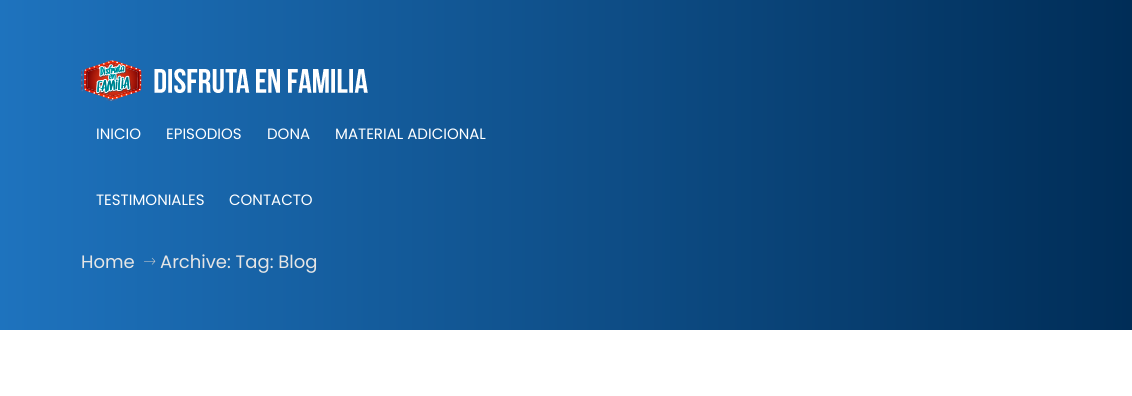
import math
import cairo


def use_color(cr, r, g, b):
  cr.set_source_rgb(r / 255, g / 255, b / 255)

def text(cr, x, y, s, family, size, color, bold=False, italic=False):
  cr.select_font_face(family, cairo.FONT_SLANT_ITALIC if italic else cairo.FONT_SLANT_NORMAL, cairo.FONT_WEIGHT_BOLD if bold else cairo.FONT_WEIGHT_NORMAL)
  cr.set_font_size(size)
  use_color(cr, *color)
  cr.move_to(x, y)
  cr.show_text(s)

def picture(cr, path, x, y, w, h):
  cr.save()
  cr.set_source_surface(cairo.ImageSurface.create_from_png(path), x, y)
  cr.rectangle(x, y, w, h)
  cr.fill()
  cr.restore()

def draw(cr):
  use_color(cr, 255, 255, 255)
  cr.paint()
  gradient = cairo.LinearGradient(0, 165, 1132, 165)
  gradient.add_color_stop_rgba(0, 0.118, 0.451, 0.745, 1)
  gradient.add_color_stop_rgba(1, 0, 0.176, 0.341, 1)
  cr.set_source(gradient)
  cr.rectangle(0, 0, 1132, 330)
  cr.fill()
  picture(cr, "img_01.png", 81, 60, 287, 41)
  picture(cr, "img_02.png", 144, 257, 12, 8)
  text(cr, 96, 139, "INICIO", "Poppins", 15, (255, 255, 255))
  text(cr, 166, 139, "EPISODIOS", "Poppins", 15, (255, 255, 255))
  text(cr, 267, 139, "DONA", "Poppins", 15, (255, 255, 255))
  text(cr, 335, 139, "MATERIAL ADICIONAL", "Poppins", 15, (255, 255, 255))
  text(cr, 96, 205, "TESTIMONIALES", "Poppins", 15, (255, 255, 255))
  text(cr, 229, 205, "CONTACTO", "Poppins", 15, (255, 255, 255))
  text(cr, 81, 268, "Home", "Poppins", 18, (229, 229, 229))
  text(cr, 160, 268, "Archive: Tag: Blog", "Poppins", 18, (229, 229, 229))


surface = cairo.ImageSurface(cairo.FORMAT_RGB24, 1132, 396)
cr = cairo.Context(surface)
options = cairo.FontOptions()
options.set_hint_metrics(cairo.HINT_METRICS_OFF)
options.set_hint_style(cairo.HINT_STYLE_NONE)
cr.set_font_options(options)
cr.set_miter_limit(4)
draw(cr)
surface.write_to_png("out.png")
